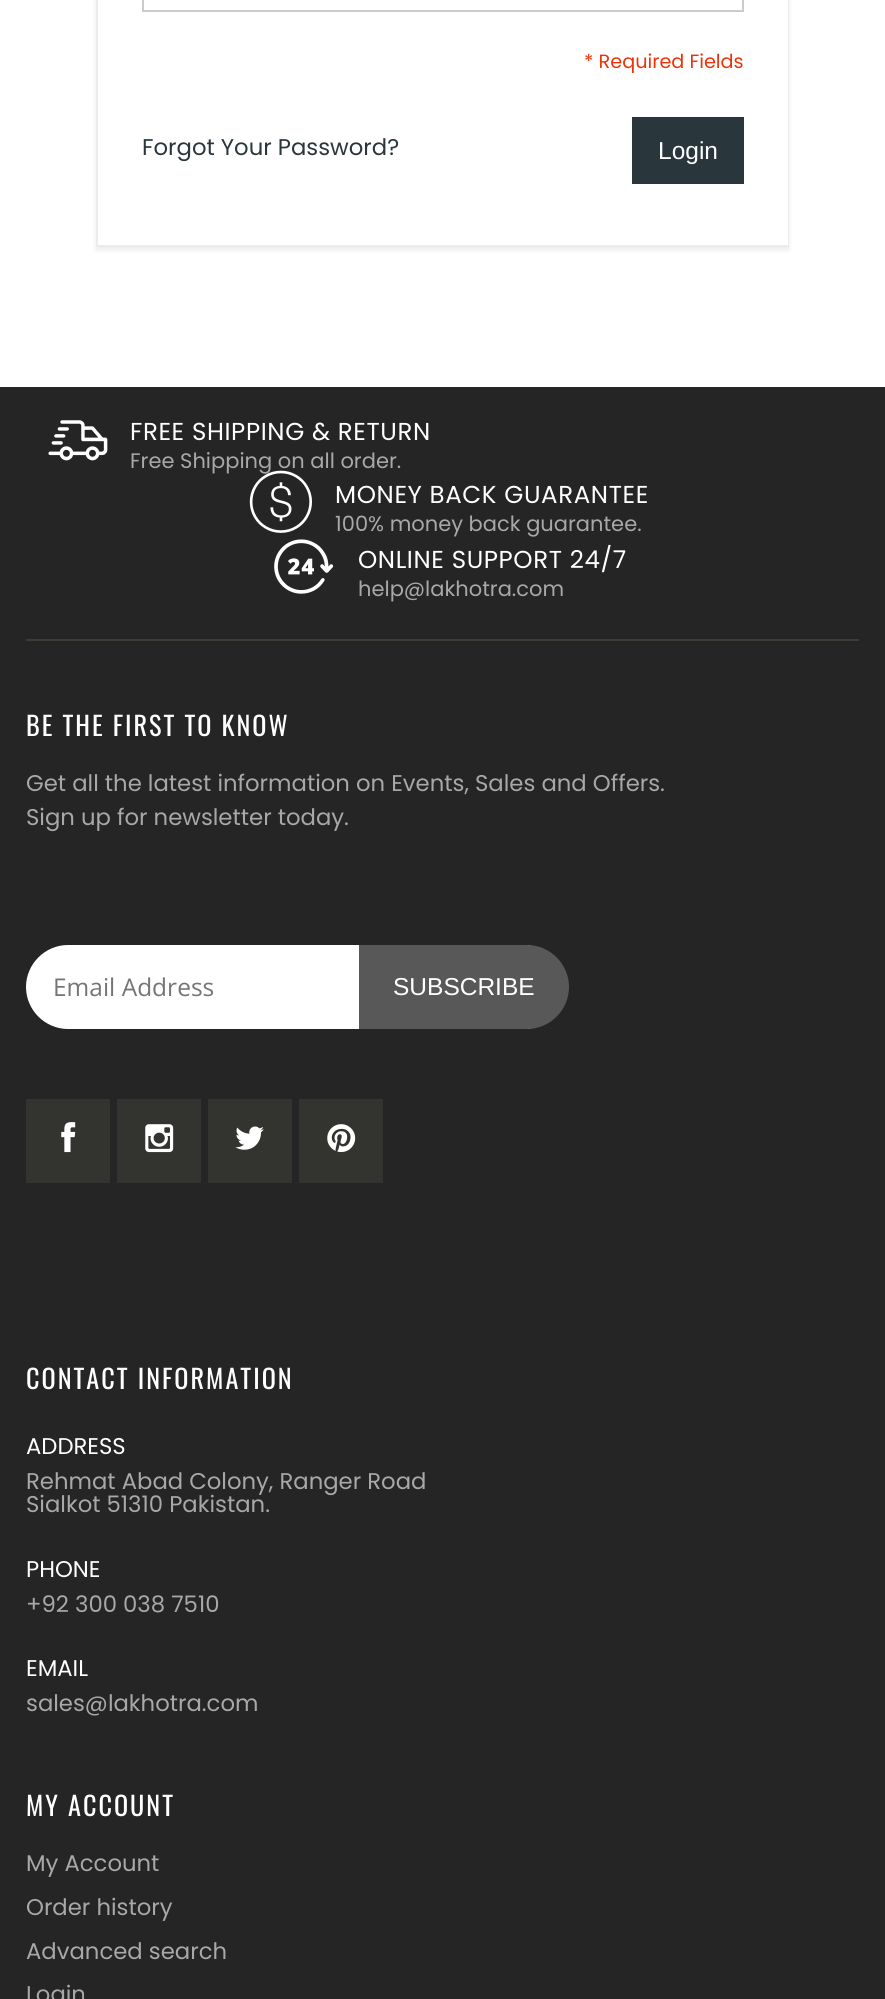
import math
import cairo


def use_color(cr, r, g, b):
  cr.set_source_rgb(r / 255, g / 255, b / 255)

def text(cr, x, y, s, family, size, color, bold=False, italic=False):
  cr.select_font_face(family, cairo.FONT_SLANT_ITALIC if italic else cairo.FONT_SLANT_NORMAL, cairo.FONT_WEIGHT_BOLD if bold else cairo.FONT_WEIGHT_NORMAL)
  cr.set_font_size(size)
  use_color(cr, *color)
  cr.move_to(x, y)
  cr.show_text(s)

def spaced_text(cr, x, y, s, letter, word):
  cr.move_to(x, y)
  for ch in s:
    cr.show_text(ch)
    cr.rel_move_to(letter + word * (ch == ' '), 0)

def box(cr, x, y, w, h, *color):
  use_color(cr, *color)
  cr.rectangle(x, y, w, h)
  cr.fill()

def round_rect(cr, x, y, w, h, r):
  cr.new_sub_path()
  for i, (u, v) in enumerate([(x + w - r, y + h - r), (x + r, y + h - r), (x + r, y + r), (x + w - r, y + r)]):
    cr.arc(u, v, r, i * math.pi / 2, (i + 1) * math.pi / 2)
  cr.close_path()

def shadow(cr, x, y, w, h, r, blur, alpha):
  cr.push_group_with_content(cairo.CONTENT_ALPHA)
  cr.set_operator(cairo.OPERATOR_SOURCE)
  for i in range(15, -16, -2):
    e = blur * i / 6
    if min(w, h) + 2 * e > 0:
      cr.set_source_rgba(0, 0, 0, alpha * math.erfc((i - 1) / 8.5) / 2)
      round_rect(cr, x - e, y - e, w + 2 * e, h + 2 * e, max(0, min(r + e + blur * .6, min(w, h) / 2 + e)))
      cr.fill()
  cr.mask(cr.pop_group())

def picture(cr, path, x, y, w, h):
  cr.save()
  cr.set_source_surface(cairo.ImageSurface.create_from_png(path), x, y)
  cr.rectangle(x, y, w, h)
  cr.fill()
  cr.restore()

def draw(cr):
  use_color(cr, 255, 255, 255)
  cr.paint()
  cr.save()
  cr.set_fill_rule(cairo.FILL_RULE_EVEN_ODD)
  cr.new_path()
  cr.move_to(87, 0)
  cr.line_to(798, 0)
  cr.line_to(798, 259)
  cr.line_to(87, 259)
  cr.close_path()
  cr.move_to(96, -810)
  cr.line_to(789, -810)
  cr.line_to(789, 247)
  cr.line_to(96, 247)
  cr.close_path()
  cr.clip()
  use_color(cr, 0, 0, 0)
  shadow(cr, 96, -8, 693, 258, 0, 2.5, 0.08)
  cr.restore()
  use_color(cr, 236, 236, 236)
  cr.new_path()
  cr.move_to(789, -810)
  cr.line_to(789, 247)
  cr.line_to(788, 245)
  cr.line_to(788, -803)
  cr.close_path()
  cr.fill()
  box(cr, 96, 245, 693, 2, 236, 236, 236)
  cr.new_path()
  cr.move_to(96, 247)
  cr.line_to(96, -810)
  cr.line_to(98, -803)
  cr.line_to(98, 245)
  cr.close_path()
  cr.fill()
  cr.rectangle(143, -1, 600, 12)
  use_color(cr, 204, 204, 204)
  cr.stroke()
  box(cr, 632, 117, 112, 67, 41, 54, 60)
  box(cr, 0, 387, 885, 1612, 37, 37, 37)
  picture(cr, "img_01.png", 48, 420, 60, 41)
  picture(cr, "img_03.png", 274, 539, 60, 55)
  box(cr, 26, 639, 833, 2, 61, 61, 56)
  use_color(cr, 255, 255, 255)
  cr.new_path()
  cr.move_to(68, 945)
  cr.line_to(530, 945)
  cr.line_to(530, 1029)
  cr.line_to(68, 1029)
  cr.curve_to(45, 1029, 26, 1010, 26, 987)
  cr.curve_to(26, 964, 45, 945, 68, 945)
  cr.close_path()
  cr.fill()
  use_color(cr, 88, 88, 88)
  cr.new_path()
  cr.move_to(359, 945)
  cr.line_to(527, 945)
  cr.curve_to(550, 945, 569, 964, 569, 987)
  cr.curve_to(569, 1010, 550, 1029, 527, 1029)
  cr.line_to(359, 1029)
  cr.close_path()
  cr.fill()
  box(cr, 26, 1099, 84, 84, 51, 51, 47)
  picture(cr, "img_04.png", 61, 1122, 15, 31)
  box(cr, 117, 1099, 84, 84, 51, 51, 47)
  picture(cr, "img_05.png", 145, 1124, 29, 29)
  box(cr, 208, 1099, 84, 84, 51, 51, 47)
  picture(cr, "img_06.png", 235, 1126, 29, 24)
  box(cr, 299, 1099, 84, 84, 51, 51, 47)
  picture(cr, "img_07.png", 327, 1124, 29, 29)
  text(cr, 584, 68, "* Required Fields", "Poppins", 19.25, (235, 52, 10))
  text(cr, 142, 155, "Forgot Your Password?", "Poppins", 22.75, (41, 54, 60))
  text(cr, 658, 159, "Login", "Liberation Sans", 24.5, (255, 255, 255))
  cr.select_font_face("Poppins")
  spaced_text(cr, 130, 440, "FREE SHIPPING & RETURN", 0.6, 0)
  text(cr, 130, 468, "Free Shipping on all order.", "Poppins", 21, (168, 168, 168))
  picture(cr, "img_02.png", 249, 470, 63, 63)
  cr.set_font_size(24.5)
  use_color(cr, 255, 255, 255)
  spaced_text(cr, 335, 503, "MONEY BACK GUARANTEE", 0.6, 0)
  text(cr, 335, 531, "100% money back guarantee.", "Poppins", 21, (168, 168, 168))
  cr.set_font_size(24.5)
  use_color(cr, 255, 255, 255)
  spaced_text(cr, 358, 568, "ONLINE SUPPORT 24/7", 0.6, 0)
  text(cr, 358, 596, "help@lakhotra.com", "Poppins", 21, (168, 168, 168))
  cr.select_font_face("Oswald")
  cr.set_font_size(26.25)
  use_color(cr, 255, 255, 255)
  spaced_text(cr, 26, 736, "BE THE FIRST TO KNOW", 2, 0)
  text(cr, 26, 791, "Get all the latest information on Events, Sales and Offers.", "Poppins", 22.75, (168, 168, 168))
  text(cr, 26, 825, "Sign up for newsletter today.", "Poppins", 22.75, (168, 168, 168))
  text(cr, 53, 996, "Email Address", "Open Sans", 24.5, (117, 117, 117))
  text(cr, 393, 995, "SUBSCRIBE", "Liberation Sans", 24.5, (255, 255, 255))
  cr.select_font_face("Oswald")
  cr.set_font_size(26.25)
  spaced_text(cr, 26, 1389, "CONTACT INFORMATION", 2, 0)
  text(cr, 26, 1454, "ADDRESS", "Poppins", 22.75, (255, 255, 255))
  text(cr, 26, 1489, "Rehmat Abad Colony, Ranger Road", "Poppins", 22.75, (168, 168, 168))
  text(cr, 26, 1512, "Sialkot 51310 Pakistan.", "Poppins", 22.75, (168, 168, 168))
  text(cr, 26, 1577, "PHONE", "Poppins", 22.75, (255, 255, 255))
  text(cr, 26, 1612, "+92 300 038 7510", "Poppins", 22.75, (168, 168, 168))
  text(cr, 26, 1676, "EMAIL", "Poppins", 22.75, (255, 255, 255))
  text(cr, 26, 1711, "sales@lakhotra.com", "Poppins", 22.75, (168, 168, 168))
  cr.select_font_face("Oswald")
  cr.set_font_size(26.25)
  use_color(cr, 255, 255, 255)
  spaced_text(cr, 26, 1816, "MY ACCOUNT", 2, 0)
  text(cr, 26, 1871, "My Account", "Poppins", 22.75, (168, 168, 168))
  text(cr, 26, 1915, "Order history", "Poppins", 22.75, (168, 168, 168))
  text(cr, 26, 1959, "Advanced search", "Poppins", 22.75, (168, 168, 168))
  text(cr, 26, 2002, "Login", "Poppins", 22.75, (168, 168, 168))


surface = cairo.ImageSurface(cairo.FORMAT_RGB24, 885, 1999)
cr = cairo.Context(surface)
options = cairo.FontOptions()
options.set_hint_metrics(cairo.HINT_METRICS_OFF)
options.set_hint_style(cairo.HINT_STYLE_NONE)
cr.set_font_options(options)
cr.set_miter_limit(4)
draw(cr)
surface.write_to_png("out.png")
